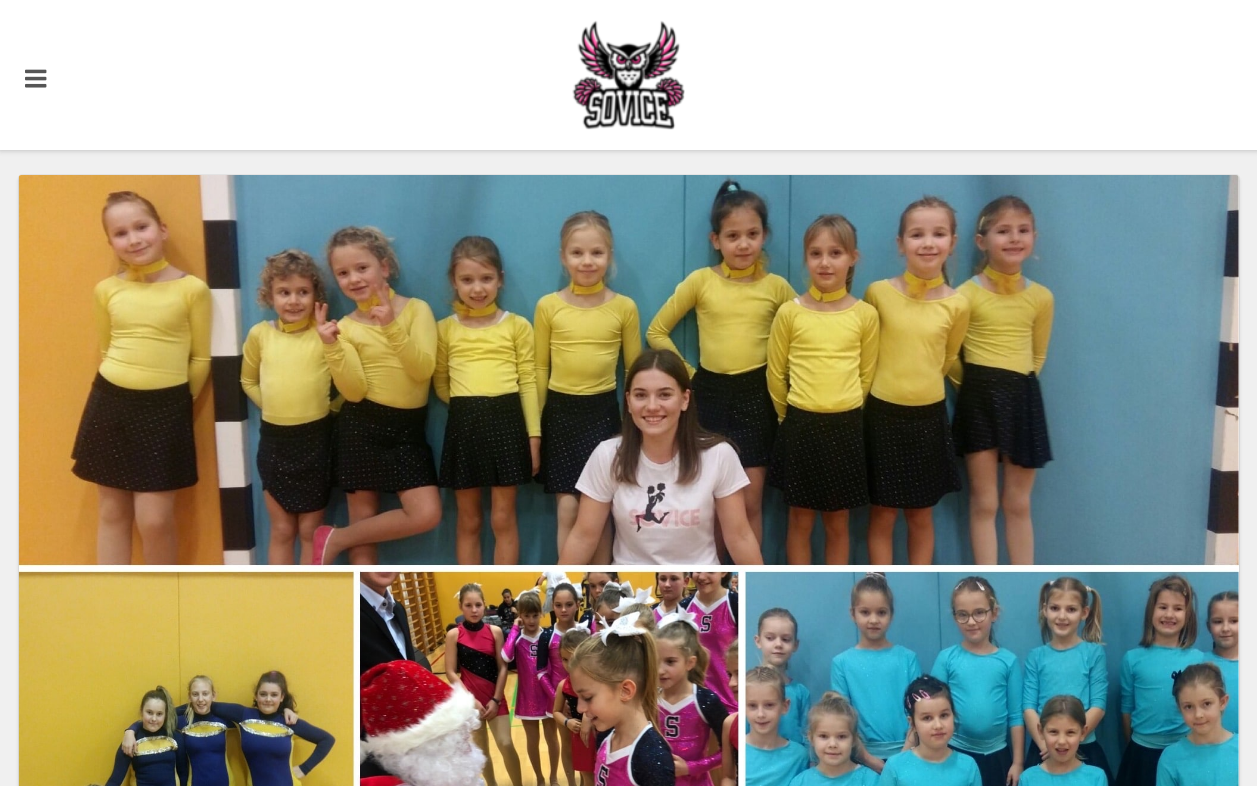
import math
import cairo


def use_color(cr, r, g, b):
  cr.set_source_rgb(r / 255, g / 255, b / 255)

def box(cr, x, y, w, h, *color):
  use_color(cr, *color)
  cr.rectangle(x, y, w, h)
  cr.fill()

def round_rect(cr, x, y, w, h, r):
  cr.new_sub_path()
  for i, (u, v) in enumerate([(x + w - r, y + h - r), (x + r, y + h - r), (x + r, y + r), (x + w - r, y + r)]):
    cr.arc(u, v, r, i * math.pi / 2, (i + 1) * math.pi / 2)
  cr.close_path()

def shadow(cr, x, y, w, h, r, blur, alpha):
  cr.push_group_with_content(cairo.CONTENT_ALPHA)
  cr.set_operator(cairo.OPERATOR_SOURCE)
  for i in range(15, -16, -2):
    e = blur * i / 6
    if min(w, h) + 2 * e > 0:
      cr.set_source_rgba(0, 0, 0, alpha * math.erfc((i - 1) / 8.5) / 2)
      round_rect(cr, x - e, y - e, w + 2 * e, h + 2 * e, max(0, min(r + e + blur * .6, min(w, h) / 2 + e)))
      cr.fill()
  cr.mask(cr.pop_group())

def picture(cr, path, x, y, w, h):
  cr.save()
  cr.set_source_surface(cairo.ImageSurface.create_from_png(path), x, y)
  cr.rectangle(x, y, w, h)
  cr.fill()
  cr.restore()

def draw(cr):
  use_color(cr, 240, 240, 240)
  cr.paint()
  use_color(cr, 0, 0, 0)
  shadow(cr, 0, 0, 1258, 150, 0, 3, 0.25)
  box(cr, 0, 0, 1257, 150, 255, 255, 255)
  picture(cr, "img_01.png", 25, 69, 22, 19)
  picture(cr, "img_02.png", 572, 20, 113, 110)
  round_rect(cr, 18.5, 174.5, 1221, 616, 3.5)
  use_color(cr, 228, 228, 228)
  cr.set_line_width(1)
  cr.stroke()
  use_color(cr, 0, 0, 0)
  shadow(cr, 19, 178, 1220, 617, 2.5, 2, 0.15)
  use_color(cr, 255, 255, 255)
  round_rect(cr, 19, 175, 1220, 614, 2.5)
  cr.fill()
  picture(cr, "img_03.png", 18, 175, 1221, 611)


surface = cairo.ImageSurface(cairo.FORMAT_RGB24, 1257, 786)
cr = cairo.Context(surface)
options = cairo.FontOptions()
options.set_hint_metrics(cairo.HINT_METRICS_OFF)
options.set_hint_style(cairo.HINT_STYLE_NONE)
cr.set_font_options(options)
cr.set_miter_limit(4)
draw(cr)
surface.write_to_png("out.png")
